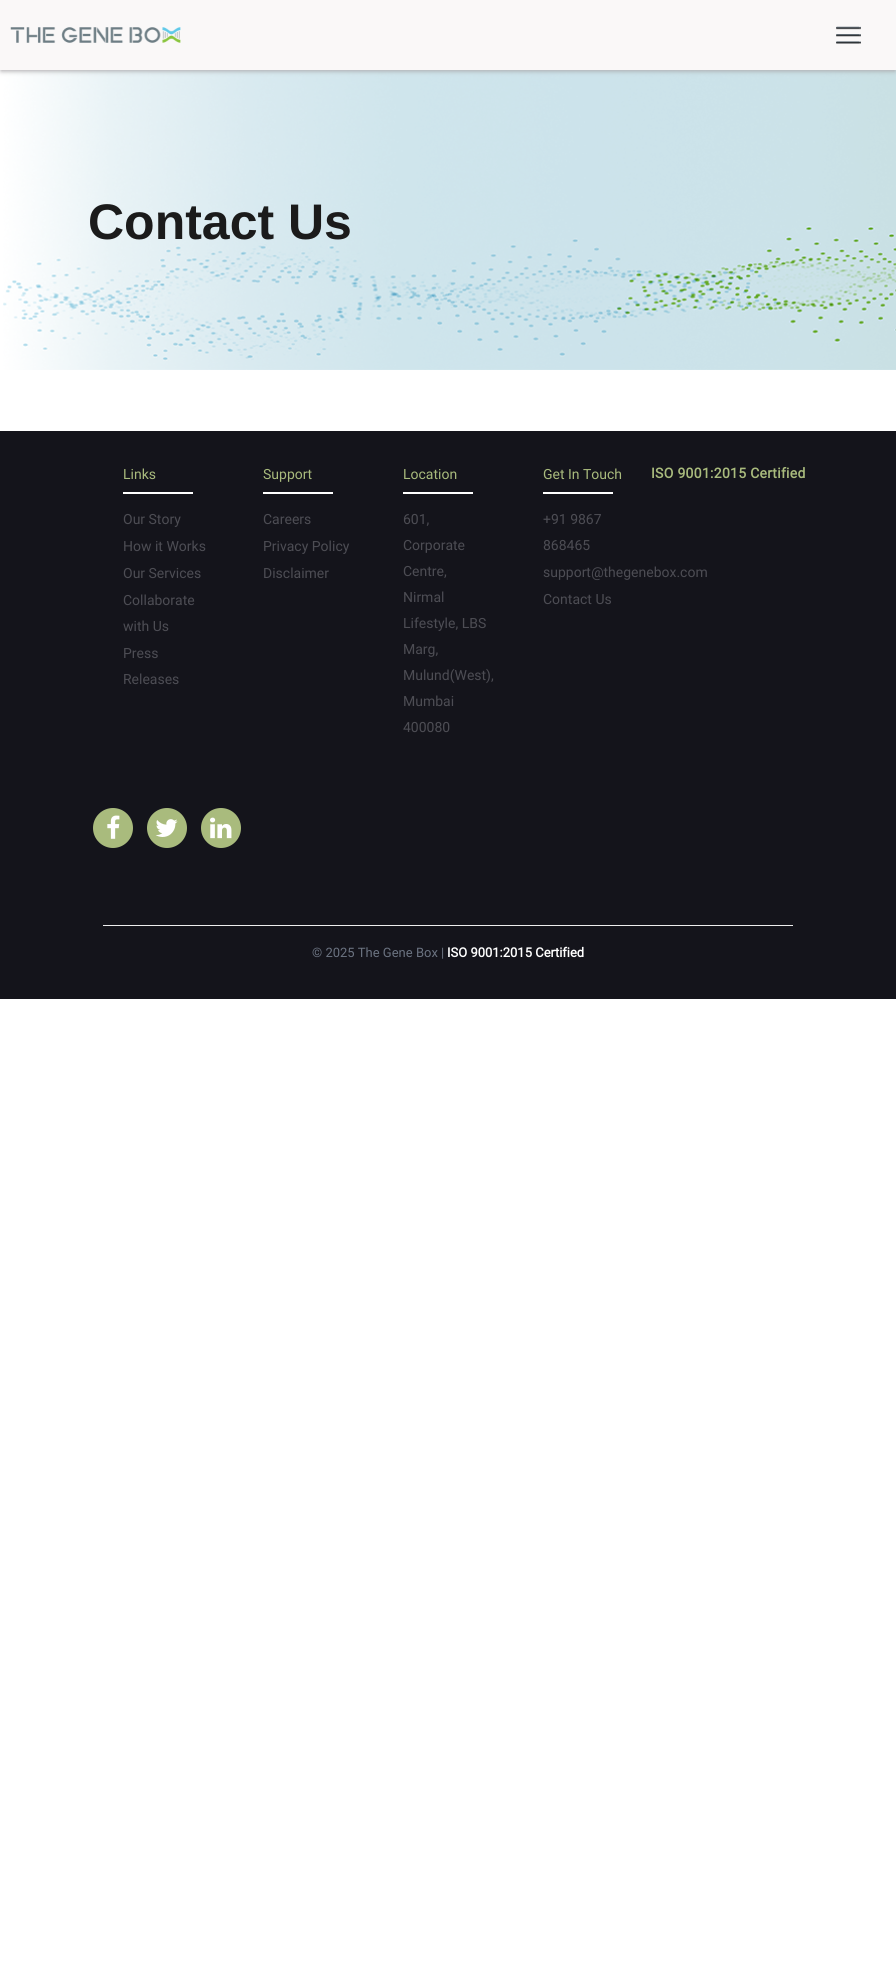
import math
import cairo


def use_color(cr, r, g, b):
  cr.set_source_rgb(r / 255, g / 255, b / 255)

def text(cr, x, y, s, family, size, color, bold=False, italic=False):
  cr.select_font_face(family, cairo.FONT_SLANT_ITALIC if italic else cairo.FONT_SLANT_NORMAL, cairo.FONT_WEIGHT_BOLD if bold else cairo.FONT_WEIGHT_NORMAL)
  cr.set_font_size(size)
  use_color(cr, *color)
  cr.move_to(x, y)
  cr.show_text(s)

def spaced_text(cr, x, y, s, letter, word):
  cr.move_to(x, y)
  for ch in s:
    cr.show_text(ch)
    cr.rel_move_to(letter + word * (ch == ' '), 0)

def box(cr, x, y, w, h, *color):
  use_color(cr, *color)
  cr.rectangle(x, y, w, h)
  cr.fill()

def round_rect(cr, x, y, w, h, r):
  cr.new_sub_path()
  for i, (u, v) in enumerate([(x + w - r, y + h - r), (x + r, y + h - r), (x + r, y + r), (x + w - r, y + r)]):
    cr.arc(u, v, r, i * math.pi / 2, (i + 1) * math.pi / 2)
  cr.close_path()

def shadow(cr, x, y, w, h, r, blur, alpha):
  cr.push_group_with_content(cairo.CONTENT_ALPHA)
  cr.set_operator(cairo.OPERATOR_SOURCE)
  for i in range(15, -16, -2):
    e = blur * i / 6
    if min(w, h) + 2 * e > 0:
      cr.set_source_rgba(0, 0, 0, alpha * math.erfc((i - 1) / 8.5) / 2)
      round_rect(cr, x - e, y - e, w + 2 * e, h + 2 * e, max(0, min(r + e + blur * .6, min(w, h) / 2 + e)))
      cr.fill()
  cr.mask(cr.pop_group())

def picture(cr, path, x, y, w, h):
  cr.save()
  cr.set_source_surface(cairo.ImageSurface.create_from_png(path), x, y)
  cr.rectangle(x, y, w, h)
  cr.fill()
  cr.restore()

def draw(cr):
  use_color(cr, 255, 255, 255)
  cr.paint()
  picture(cr, "img_04.png", 3, 70, 893, 300)
  use_color(cr, 168, 165, 168)
  shadow(cr, 1, 3, 894, 68, 0, 2.5, 1)
  box(cr, 0, 0, 896, 70, 250, 248, 248)
  picture(cr, "img_01.png", 10, 27, 171, 16)
  picture(cr, "img_02.png", 836, 26, 25, 18)
  picture(cr, "img_03.png", 836, 27, 25, 17)
  box(cr, 0, 431, 896, 568, 20, 20, 27)
  box(cr, 123, 492, 70, 2, 255, 255, 255)
  box(cr, 263, 492, 70, 2, 255, 255, 255)
  box(cr, 403, 492, 70, 2, 255, 255, 255)
  box(cr, 543, 492, 70, 2, 255, 255, 255)
  use_color(cr, 169, 187, 125)
  cr.arc(113, 828, 20, 0, 2 * math.pi)
  cr.fill()
  picture(cr, "img_05.png", 107, 815, 13, 24)
  cr.arc(167, 828, 20, 0, 2 * math.pi)
  cr.fill()
  picture(cr, "img_06.png", 155, 819, 23, 18)
  cr.arc(221, 828, 20, 0, 2 * math.pi)
  cr.fill()
  picture(cr, "img_07.png", 210, 817, 22, 22)
  box(cr, 103, 925, 690, 1, 238, 238, 238)
  text(cr, 88, 239, "Contact Us", "Liberation Sans", 50, (27, 27, 27), bold=True)
  text(cr, 123, 479, "Links", "Roboto", 14, (169, 187, 125))
  text(cr, 123, 524, "Our Story", "Roboto", 14, (77, 77, 84))
  text(cr, 123, 551, "How it Works", "Roboto", 14, (77, 77, 84))
  text(cr, 123, 578, "Our Services", "Roboto", 14, (77, 77, 84))
  text(cr, 123, 605, "Collaborate", "Roboto", 14, (77, 77, 84))
  text(cr, 123, 631, "with Us", "Roboto", 14, (77, 77, 84))
  text(cr, 123, 658, "Press", "Roboto", 14, (77, 77, 84))
  text(cr, 123, 684, "Releases", "Roboto", 14, (77, 77, 84))
  text(cr, 263, 479, "Support", "Roboto", 14, (169, 187, 125))
  text(cr, 263, 524, "Careers", "Roboto", 14, (77, 77, 84))
  text(cr, 263, 551, "Privacy Policy", "Roboto", 14, (77, 77, 84))
  text(cr, 263, 578, "Disclaimer", "Roboto", 14, (77, 77, 84))
  text(cr, 403, 479, "Location", "Roboto", 14, (169, 187, 125))
  text(cr, 403, 524, "601,", "Roboto", 14, (77, 77, 84))
  text(cr, 403, 550, "Corporate", "Roboto", 14, (77, 77, 84))
  text(cr, 403, 576, "Centre,", "Roboto", 14, (77, 77, 84))
  text(cr, 403, 602, "Nirmal", "Roboto", 14, (77, 77, 84))
  text(cr, 403, 628, "Lifestyle, LBS", "Roboto", 14, (77, 77, 84))
  text(cr, 403, 654, "Marg,", "Roboto", 14, (77, 77, 84))
  text(cr, 403, 680, "Mulund(West),", "Roboto", 14, (77, 77, 84))
  text(cr, 403, 706, "Mumbai", "Roboto", 14, (77, 77, 84))
  text(cr, 403, 732, "400080", "Roboto", 14, (77, 77, 84))
  text(cr, 543, 479, "Get In Touch", "Roboto", 14, (169, 187, 125))
  text(cr, 543, 524, "+91 9867", "Roboto", 14, (77, 77, 84))
  text(cr, 543, 550, "868465", "Roboto", 14, (77, 77, 84))
  text(cr, 543, 577, "support@thegenebox.com", "Roboto", 14, (77, 77, 84))
  text(cr, 543, 604, "Contact Us", "Roboto", 14, (77, 77, 84))
  cr.select_font_face("Roboto", cairo.FONT_SLANT_NORMAL, cairo.FONT_WEIGHT_BOLD)
  use_color(cr, 169, 187, 125)
  spaced_text(cr, 651, 478, "ISO 9001:2015 Certified", 0.3, 0)
  text(cr, 312, 957, "© 2025 The Gene Box |", "Roboto", 13, (107, 115, 129))
  text(cr, 447, 957, "ISO 9001:2015 Certified", "Roboto", 13, (255, 255, 255), bold=True)


surface = cairo.ImageSurface(cairo.FORMAT_RGB24, 896, 1975)
cr = cairo.Context(surface)
options = cairo.FontOptions()
options.set_hint_metrics(cairo.HINT_METRICS_OFF)
options.set_hint_style(cairo.HINT_STYLE_NONE)
cr.set_font_options(options)
cr.set_miter_limit(4)
draw(cr)
surface.write_to_png("out.png")
